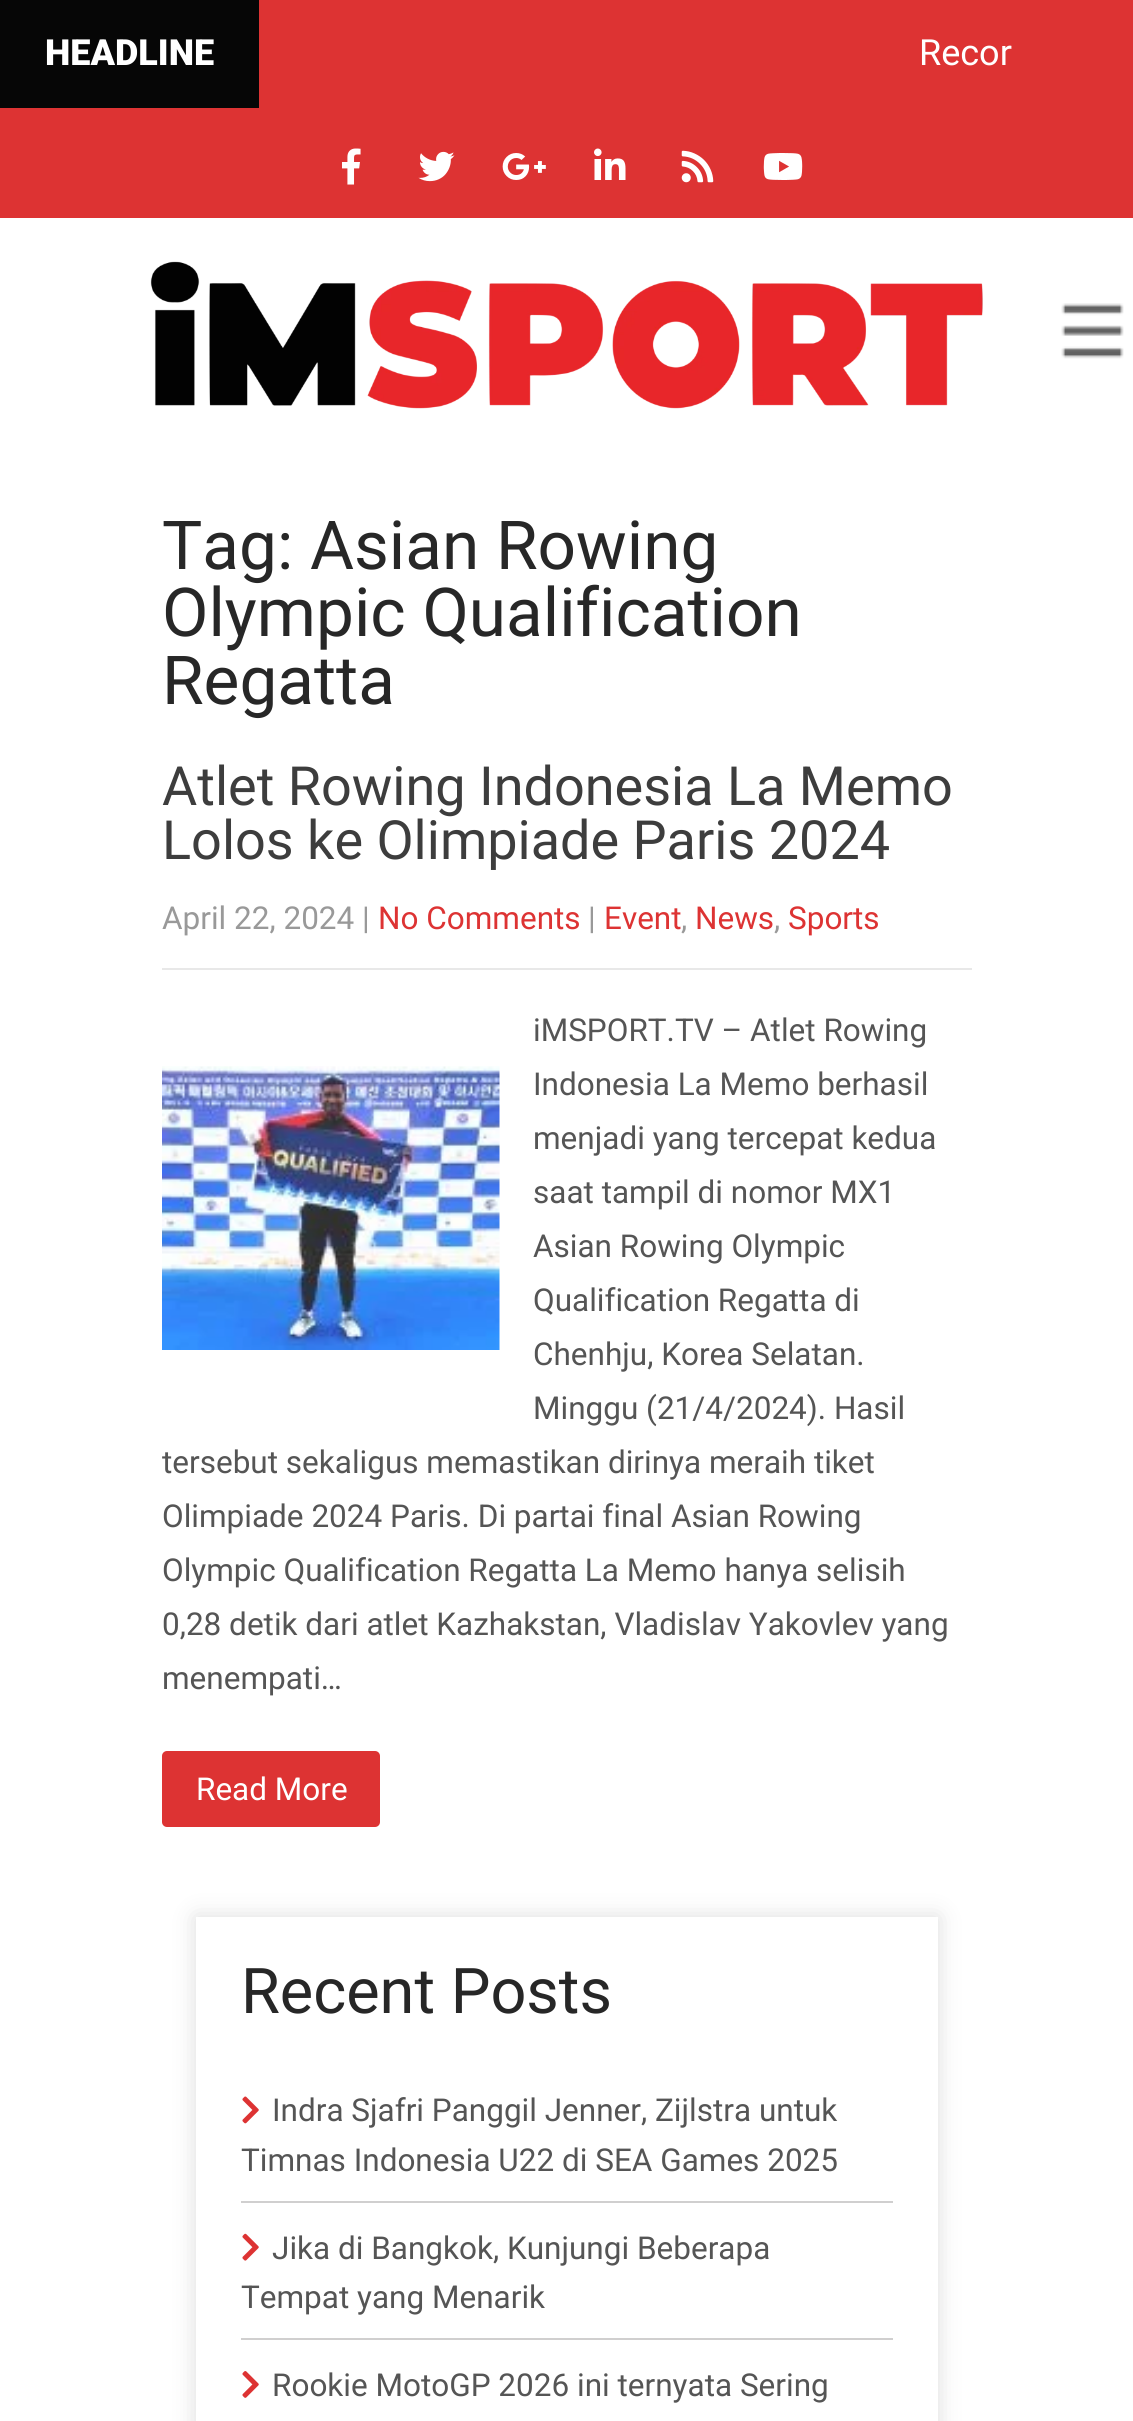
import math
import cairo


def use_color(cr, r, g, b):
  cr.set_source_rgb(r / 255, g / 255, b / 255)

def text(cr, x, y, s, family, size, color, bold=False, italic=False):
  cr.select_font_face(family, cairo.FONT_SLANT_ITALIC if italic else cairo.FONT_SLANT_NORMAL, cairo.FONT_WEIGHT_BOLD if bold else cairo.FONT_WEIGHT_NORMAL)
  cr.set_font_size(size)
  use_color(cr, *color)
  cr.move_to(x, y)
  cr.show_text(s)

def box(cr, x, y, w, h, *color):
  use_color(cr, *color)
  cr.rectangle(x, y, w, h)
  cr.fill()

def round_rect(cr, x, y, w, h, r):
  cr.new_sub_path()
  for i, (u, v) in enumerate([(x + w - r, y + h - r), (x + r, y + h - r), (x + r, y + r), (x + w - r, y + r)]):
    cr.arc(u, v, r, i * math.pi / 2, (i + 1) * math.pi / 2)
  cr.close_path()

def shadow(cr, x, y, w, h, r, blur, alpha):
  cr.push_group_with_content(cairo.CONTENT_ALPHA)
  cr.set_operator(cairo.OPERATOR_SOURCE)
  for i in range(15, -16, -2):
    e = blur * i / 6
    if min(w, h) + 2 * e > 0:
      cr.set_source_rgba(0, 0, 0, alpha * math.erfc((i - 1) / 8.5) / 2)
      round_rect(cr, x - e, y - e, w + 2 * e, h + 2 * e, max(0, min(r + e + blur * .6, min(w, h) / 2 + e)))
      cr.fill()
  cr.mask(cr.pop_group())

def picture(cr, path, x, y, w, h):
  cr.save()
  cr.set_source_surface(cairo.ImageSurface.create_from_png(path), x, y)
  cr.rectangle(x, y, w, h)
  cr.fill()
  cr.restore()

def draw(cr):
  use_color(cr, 255, 255, 255)
  cr.paint()
  box(cr, 0, 0, 1133, 218, 221, 51, 51)
  box(cr, 0, 0, 259, 108, 6, 6, 6)
  picture(cr, "img_01.png", 342, 148, 19, 37)
  picture(cr, "img_02.png", 418, 151, 37, 31)
  picture(cr, "img_03.png", 502, 153, 44, 27)
  picture(cr, "img_04.png", 594, 148, 32, 32)
  picture(cr, "img_05.png", 681, 150, 33, 33)
  picture(cr, "img_06.png", 763, 153, 40, 27)
  picture(cr, "img_07.png", 150, 261, 833, 148)
  picture(cr, "img_08.png", 1061, 303, 63, 56)
  box(cr, 162, 968, 810, 2, 232, 232, 232)
  picture(cr, "img_09.png", 162, 1066, 338, 284)
  use_color(cr, 221, 51, 51)
  round_rect(cr, 162, 1751, 218, 76, 5)
  cr.fill()
  cr.save()
  cr.set_fill_rule(cairo.FILL_RULE_EVEN_ODD)
  cr.new_path()
  cr.move_to(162, 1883)
  cr.line_to(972, 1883)
  cr.line_to(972, 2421)
  cr.line_to(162, 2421)
  cr.close_path()
  cr.move_to(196, 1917)
  cr.line_to(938, 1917)
  cr.line_to(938, 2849)
  cr.line_to(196, 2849)
  cr.close_path()
  cr.clip()
  use_color(cr, 221, 221, 221)
  shadow(cr, 196, 1917, 742, 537, 0, 11, 1)
  cr.restore()
  box(cr, 241, 2201, 652, 2, 208, 207, 207)
  picture(cr, "img_10.png", 242, 2096, 17, 28)
  box(cr, 241, 2338, 652, 2, 208, 207, 207)
  picture(cr, "img_11.png", 242, 2233, 17, 28)
  picture(cr, "img_12.png", 242, 2371, 17, 27)
  text(cr, 45, 65, "HEADLINE", "Roboto Black", 36, (255, 255, 255))
  text(cr, 919, 65, "Recor", "Roboto", 36, (255, 255, 255))
  text(cr, 162, 569, "Tag: Asian Rowing", "Roboto", 67.5, (39, 39, 39))
  text(cr, 162, 636, "Olympic Qualification", "Roboto", 67.5, (39, 39, 39))
  text(cr, 162, 704, "Regatta", "Roboto", 67.5, (39, 39, 39))
  text(cr, 162, 805, "Atlet Rowing Indonesia La Memo", "Roboto", 54, (61, 61, 61))
  text(cr, 162, 859, "Lolos ke Olimpiade Paris 2024", "Roboto", 54, (61, 61, 61))
  text(cr, 162, 929, "April 22, 2024 |", "Roboto", 31.5, (153, 153, 153))
  text(cr, 378, 929, "No Comments", "Roboto", 31.5, (221, 51, 51))
  text(cr, 588, 929, "|", "Roboto", 31.5, (153, 153, 153))
  text(cr, 604, 929, "Event", "Roboto", 31.5, (221, 51, 51))
  text(cr, 681, 929, ",", "Roboto", 31.5, (153, 153, 153))
  text(cr, 695, 929, "News", "Roboto", 31.5, (221, 51, 51))
  text(cr, 774, 929, ",", "Roboto", 31.5, (153, 153, 153))
  text(cr, 788, 929, "Sports", "Roboto", 31.5, (221, 51, 51))
  text(cr, 533, 1041, "iMSPORT.TV – Atlet Rowing", "Roboto", 31.5, (85, 85, 85))
  text(cr, 533, 1095, "Indonesia La Memo berhasil", "Roboto", 31.5, (85, 85, 85))
  text(cr, 533, 1149, "menjadi yang tercepat kedua", "Roboto", 31.5, (85, 85, 85))
  text(cr, 533, 1203, "saat tampil di nomor MX1", "Roboto", 31.5, (85, 85, 85))
  text(cr, 533, 1257, "Asian Rowing Olympic", "Roboto", 31.5, (85, 85, 85))
  text(cr, 533, 1311, "Qualification Regatta di", "Roboto", 31.5, (85, 85, 85))
  text(cr, 533, 1365, "Chenhju, Korea Selatan.", "Roboto", 31.5, (85, 85, 85))
  text(cr, 533, 1419, "Minggu (21/4/2024). Hasil", "Roboto", 31.5, (85, 85, 85))
  text(cr, 162, 1473, "tersebut sekaligus memastikan dirinya meraih tiket", "Roboto", 31.5, (85, 85, 85))
  text(cr, 162, 1527, "Olimpiade 2024 Paris. Di partai final Asian Rowing", "Roboto", 31.5, (85, 85, 85))
  text(cr, 162, 1581, "Olympic Qualification Regatta La Memo hanya selisih", "Roboto", 31.5, (85, 85, 85))
  text(cr, 162, 1635, "0,28 detik dari atlet Kazhakstan, Vladislav Yakovlev yang", "Roboto", 31.5, (85, 85, 85))
  text(cr, 162, 1689, "menempati…", "Roboto", 31.5, (85, 85, 85))
  text(cr, 196, 1800, "Read More", "Roboto", 31.5, (255, 255, 255))
  text(cr, 241, 2013, "Recent Posts", "Roboto", 63, (39, 39, 39))
  text(cr, 272, 2121, "Indra Sjafri Panggil Jenner, Zijlstra untuk", "Roboto", 31.5, (85, 85, 85))
  text(cr, 241, 2171, "Timnas Indonesia U22 di SEA Games 2025", "Roboto", 31.5, (85, 85, 85))
  text(cr, 272, 2259, "Jika di Bangkok, Kunjungi Beberapa", "Roboto", 31.5, (85, 85, 85))
  text(cr, 241, 2308, "Tempat yang Menarik", "Roboto", 31.5, (85, 85, 85))
  text(cr, 272, 2396, "Rookie MotoGP 2026 ini ternyata Sering", "Roboto", 31.5, (85, 85, 85))


surface = cairo.ImageSurface(cairo.FORMAT_RGB24, 1133, 2421)
cr = cairo.Context(surface)
options = cairo.FontOptions()
options.set_hint_metrics(cairo.HINT_METRICS_OFF)
options.set_hint_style(cairo.HINT_STYLE_NONE)
cr.set_font_options(options)
cr.set_miter_limit(4)
draw(cr)
surface.write_to_png("out.png")
